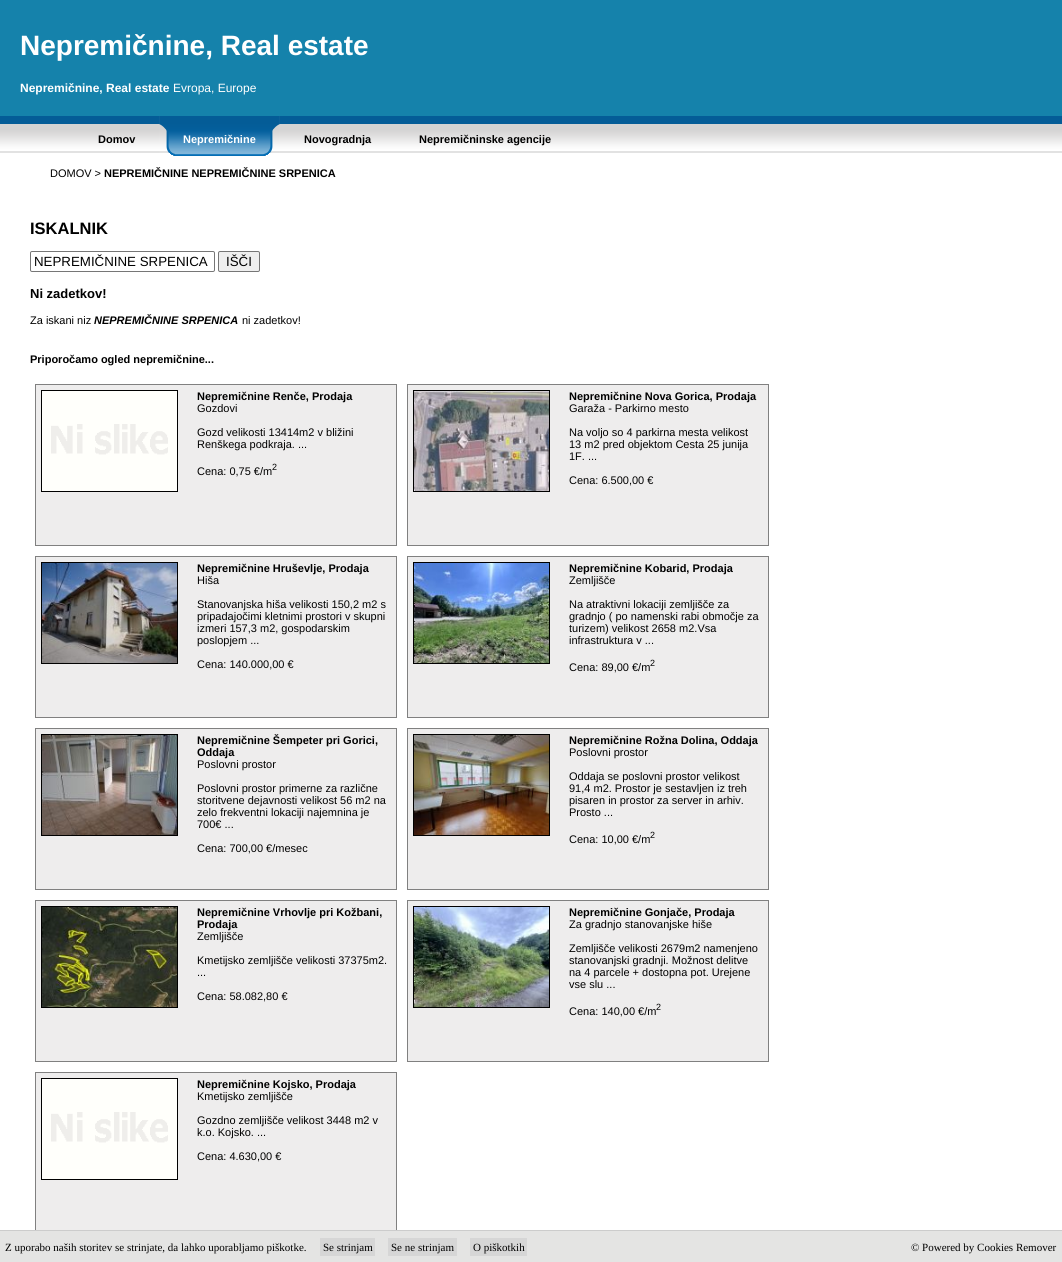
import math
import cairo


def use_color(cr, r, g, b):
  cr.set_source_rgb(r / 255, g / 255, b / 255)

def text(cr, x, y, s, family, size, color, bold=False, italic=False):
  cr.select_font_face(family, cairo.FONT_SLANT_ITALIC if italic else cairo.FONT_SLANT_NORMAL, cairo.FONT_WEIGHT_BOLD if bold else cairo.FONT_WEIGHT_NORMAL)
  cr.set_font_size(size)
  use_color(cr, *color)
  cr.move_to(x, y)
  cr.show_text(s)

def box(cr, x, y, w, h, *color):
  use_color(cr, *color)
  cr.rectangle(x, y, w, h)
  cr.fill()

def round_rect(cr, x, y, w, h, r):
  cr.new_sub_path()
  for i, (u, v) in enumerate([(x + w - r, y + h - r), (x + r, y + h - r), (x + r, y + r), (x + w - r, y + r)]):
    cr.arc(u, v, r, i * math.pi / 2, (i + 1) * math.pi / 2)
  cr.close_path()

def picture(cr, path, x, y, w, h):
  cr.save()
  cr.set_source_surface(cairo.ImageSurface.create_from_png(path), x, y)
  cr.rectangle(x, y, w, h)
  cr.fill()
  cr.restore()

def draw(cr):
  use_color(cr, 255, 255, 255)
  cr.paint()
  box(cr, 0, 0, 1062, 116, 21, 130, 171)
  picture(cr, "img_01.png", 0, 116, 1062, 37)
  picture(cr, "img_02.png", 159, 116, 16, 40)
  picture(cr, "img_03.png", 175, 116, 105, 40)
  round_rect(cr, 30.5, 251.5, 184, 20, 1.5)
  use_color(cr, 118, 118, 118)
  cr.set_line_width(1)
  cr.stroke()
  use_color(cr, 239, 239, 239)
  round_rect(cr, 218.5, 251.5, 41, 20, 1.5)
  cr.fill_preserve()
  use_color(cr, 118, 118, 118)
  cr.stroke()
  use_color(cr, 238, 237, 237)
  cr.rectangle(35.5, 384.5, 361, 161)
  cr.fill_preserve()
  use_color(cr, 128, 128, 128)
  cr.stroke()
  cr.rectangle(41.5, 390.5, 136, 101)
  use_color(cr, 0, 0, 0)
  cr.stroke()
  picture(cr, "img_04.png", 42, 391, 135, 100)
  use_color(cr, 238, 237, 237)
  cr.rectangle(407.5, 384.5, 361, 161)
  cr.fill_preserve()
  use_color(cr, 128, 128, 128)
  cr.stroke()
  cr.rectangle(413.5, 390.5, 136, 101)
  use_color(cr, 0, 0, 0)
  cr.stroke()
  picture(cr, "img_05.png", 414, 391, 135, 100)
  use_color(cr, 238, 237, 237)
  cr.rectangle(35.5, 556.5, 361, 161)
  cr.fill_preserve()
  use_color(cr, 128, 128, 128)
  cr.stroke()
  cr.rectangle(41.5, 562.5, 136, 101)
  use_color(cr, 0, 0, 0)
  cr.stroke()
  picture(cr, "img_06.png", 42, 563, 135, 100)
  use_color(cr, 238, 237, 237)
  cr.rectangle(407.5, 556.5, 361, 161)
  cr.fill_preserve()
  use_color(cr, 128, 128, 128)
  cr.stroke()
  cr.rectangle(413.5, 562.5, 136, 101)
  use_color(cr, 0, 0, 0)
  cr.stroke()
  picture(cr, "img_07.png", 414, 563, 135, 100)
  use_color(cr, 238, 237, 237)
  cr.rectangle(35.5, 728.5, 361, 161)
  cr.fill_preserve()
  use_color(cr, 128, 128, 128)
  cr.stroke()
  cr.rectangle(41.5, 734.5, 136, 101)
  use_color(cr, 0, 0, 0)
  cr.stroke()
  picture(cr, "img_08.png", 42, 735, 135, 100)
  use_color(cr, 238, 237, 237)
  cr.rectangle(407.5, 728.5, 361, 161)
  cr.fill_preserve()
  use_color(cr, 128, 128, 128)
  cr.stroke()
  cr.rectangle(413.5, 734.5, 136, 101)
  use_color(cr, 0, 0, 0)
  cr.stroke()
  picture(cr, "img_09.png", 414, 735, 135, 100)
  use_color(cr, 238, 237, 237)
  cr.rectangle(35.5, 900.5, 361, 161)
  cr.fill_preserve()
  use_color(cr, 128, 128, 128)
  cr.stroke()
  cr.rectangle(41.5, 906.5, 136, 101)
  use_color(cr, 0, 0, 0)
  cr.stroke()
  picture(cr, "img_10.png", 42, 907, 135, 100)
  use_color(cr, 238, 237, 237)
  cr.rectangle(407.5, 900.5, 361, 161)
  cr.fill_preserve()
  use_color(cr, 128, 128, 128)
  cr.stroke()
  cr.rectangle(413.5, 906.5, 136, 101)
  use_color(cr, 0, 0, 0)
  cr.stroke()
  picture(cr, "img_11.png", 414, 907, 135, 100)
  box(cr, 36, 1073, 360, 157, 238, 237, 237)
  cr.rectangle(35.5, 1072.5, 361, 161)
  use_color(cr, 128, 128, 128)
  cr.stroke()
  cr.rectangle(41.5, 1078.5, 136, 101)
  use_color(cr, 0, 0, 0)
  cr.stroke()
  picture(cr, "img_04.png", 42, 1079, 135, 100)
  box(cr, 0, 1231, 1062, 31, 228, 228, 227)
  box(cr, 0, 1230, 1062, 1, 204, 204, 204)
  box(cr, 320, 1238, 55, 18, 214, 214, 214)
  box(cr, 388, 1238, 69, 18, 214, 214, 214)
  box(cr, 470, 1238, 57, 18, 214, 214, 214)
  text(cr, 20, 55, "Nepremičnine, Real estate", "Liberation Sans", 28, (255, 255, 255), bold=True)
  text(cr, 20, 92, "Nepremičnine, Real estate", "Liberation Sans", 12, (255, 255, 255), bold=True)
  text(cr, 173, 92, "Evropa, Europe", "Liberation Sans", 12, (255, 255, 255))
  text(cr, 98, 143, "Domov", "Liberation Sans", 11, (0, 0, 0), bold=True)
  text(cr, 183, 143, "Nepremičnine", "Liberation Sans", 11, (255, 255, 255), bold=True)
  text(cr, 304, 143, "Novogradnja", "Liberation Sans", 11, (0, 0, 0), bold=True)
  text(cr, 419, 143, "Nepremičninske agencije", "Liberation Sans", 11, (0, 0, 0), bold=True)
  text(cr, 50, 177, "DOMOV >", "Liberation Sans", 11, (0, 0, 0))
  text(cr, 104, 177, "NEPREMIČNINE NEPREMIČNINE SRPENICA", "Liberation Sans", 11, (0, 0, 0), bold=True)
  text(cr, 30, 234, "ISKALNIK", "Liberation Sans", 16.5, (0, 0, 0), bold=True)
  text(cr, 34, 266, "NEPREMIČNINE SRPENICA", "Liberation Sans", 13.3, (0, 0, 0))
  text(cr, 226, 266, "IŠČI", "Liberation Sans", 13.3, (0, 0, 0))
  text(cr, 30, 298, "Ni zadetkov!", "Liberation Sans", 13, (0, 0, 0), bold=True)
  text(cr, 30, 324, "Za iskani niz", "Liberation Sans", 11, (0, 0, 0))
  text(cr, 94, 324, "NEPREMIČNINE SRPENICA", "Liberation Sans", 11, (0, 0, 0), bold=True, italic=True)
  text(cr, 242, 324, "ni zadetkov!", "Liberation Sans", 11, (0, 0, 0))
  text(cr, 30, 363, "Priporočamo ogled nepremičnine...", "Liberation Sans", 11, (0, 0, 0), bold=True)
  text(cr, 197, 400, "Nepremičnine Renče, Prodaja", "Liberation Sans", 11, (0, 0, 0), bold=True)
  text(cr, 197, 412, "Gozdovi", "Liberation Sans", 11, (0, 0, 0))
  text(cr, 197, 436, "Gozd velikosti 13414m2 v bližini", "Liberation Sans", 11, (0, 0, 0))
  text(cr, 197, 448, "Renškega podkraja. ...", "Liberation Sans", 11, (0, 0, 0))
  text(cr, 197, 475, "Cena: 0,75 €/m", "Liberation Sans", 11, (0, 0, 0))
  text(cr, 272, 470, "2", "Liberation Sans", 9, (0, 0, 0))
  text(cr, 569, 400, "Nepremičnine Nova Gorica, Prodaja", "Liberation Sans", 11, (0, 0, 0), bold=True)
  text(cr, 569, 412, "Garaža - Parkirno mesto", "Liberation Sans", 11, (0, 0, 0))
  text(cr, 569, 436, "Na voljo so 4 parkirna mesta velikost", "Liberation Sans", 11, (0, 0, 0))
  text(cr, 569, 448, "13 m2 pred objektom Cesta 25 junija", "Liberation Sans", 11, (0, 0, 0))
  text(cr, 569, 460, "1F. ...", "Liberation Sans", 11, (0, 0, 0))
  text(cr, 569, 484, "Cena: 6.500,00 €", "Liberation Sans", 11, (0, 0, 0))
  text(cr, 197, 572, "Nepremičnine Hruševlje, Prodaja", "Liberation Sans", 11, (0, 0, 0), bold=True)
  text(cr, 197, 584, "Hiša", "Liberation Sans", 11, (0, 0, 0))
  text(cr, 197, 608, "Stanovanjska hiša velikosti 150,2 m2 s", "Liberation Sans", 11, (0, 0, 0))
  text(cr, 197, 620, "pripadajočimi kletnimi prostori v skupni", "Liberation Sans", 11, (0, 0, 0))
  text(cr, 197, 632, "izmeri 157,3 m2, gospodarskim", "Liberation Sans", 11, (0, 0, 0))
  text(cr, 197, 644, "poslopjem ...", "Liberation Sans", 11, (0, 0, 0))
  text(cr, 197, 668, "Cena: 140.000,00 €", "Liberation Sans", 11, (0, 0, 0))
  text(cr, 569, 572, "Nepremičnine Kobarid, Prodaja", "Liberation Sans", 11, (0, 0, 0), bold=True)
  text(cr, 569, 584, "Zemljišče", "Liberation Sans", 11, (0, 0, 0))
  text(cr, 569, 608, "Na atraktivni lokaciji zemljišče za", "Liberation Sans", 11, (0, 0, 0))
  text(cr, 569, 620, "gradnjo ( po namenski rabi območje za", "Liberation Sans", 11, (0, 0, 0))
  text(cr, 569, 632, "turizem) velikost 2658 m2.Vsa", "Liberation Sans", 11, (0, 0, 0))
  text(cr, 569, 644, "infrastruktura v ...", "Liberation Sans", 11, (0, 0, 0))
  text(cr, 569, 671, "Cena: 89,00 €/m", "Liberation Sans", 11, (0, 0, 0))
  text(cr, 650, 666, "2", "Liberation Sans", 9, (0, 0, 0))
  text(cr, 197, 744, "Nepremičnine Šempeter pri Gorici,", "Liberation Sans", 11, (0, 0, 0), bold=True)
  text(cr, 197, 756, "Oddaja", "Liberation Sans", 11, (0, 0, 0), bold=True)
  text(cr, 197, 768, "Poslovni prostor", "Liberation Sans", 11, (0, 0, 0))
  text(cr, 197, 792, "Poslovni prostor primerne za različne", "Liberation Sans", 11, (0, 0, 0))
  text(cr, 197, 804, "storitvene dejavnosti velikost 56 m2 na", "Liberation Sans", 11, (0, 0, 0))
  text(cr, 197, 816, "zelo frekventni lokaciji najemnina je", "Liberation Sans", 11, (0, 0, 0))
  text(cr, 197, 828, "700€ ...", "Liberation Sans", 11, (0, 0, 0))
  text(cr, 197, 852, "Cena: 700,00 €/mesec", "Liberation Sans", 11, (0, 0, 0))
  text(cr, 569, 744, "Nepremičnine Rožna Dolina, Oddaja", "Liberation Sans", 11, (0, 0, 0), bold=True)
  text(cr, 569, 756, "Poslovni prostor", "Liberation Sans", 11, (0, 0, 0))
  text(cr, 569, 780, "Oddaja se poslovni prostor velikost", "Liberation Sans", 11, (0, 0, 0))
  text(cr, 569, 792, "91,4 m2. Prostor je sestavljen iz treh", "Liberation Sans", 11, (0, 0, 0))
  text(cr, 569, 804, "pisaren in prostor za server in arhiv.", "Liberation Sans", 11, (0, 0, 0))
  text(cr, 569, 816, "Prosto ...", "Liberation Sans", 11, (0, 0, 0))
  text(cr, 569, 843, "Cena: 10,00 €/m", "Liberation Sans", 11, (0, 0, 0))
  text(cr, 650, 838, "2", "Liberation Sans", 9, (0, 0, 0))
  text(cr, 197, 916, "Nepremičnine Vrhovlje pri Kožbani,", "Liberation Sans", 11, (0, 0, 0), bold=True)
  text(cr, 197, 928, "Prodaja", "Liberation Sans", 11, (0, 0, 0), bold=True)
  text(cr, 197, 940, "Zemljišče", "Liberation Sans", 11, (0, 0, 0))
  text(cr, 197, 964, "Kmetijsko zemljišče velikosti 37375m2.", "Liberation Sans", 11, (0, 0, 0))
  text(cr, 197, 976, "...", "Liberation Sans", 11, (0, 0, 0))
  text(cr, 197, 1000, "Cena: 58.082,80 €", "Liberation Sans", 11, (0, 0, 0))
  text(cr, 569, 916, "Nepremičnine Gonjače, Prodaja", "Liberation Sans", 11, (0, 0, 0), bold=True)
  text(cr, 569, 928, "Za gradnjo stanovanjske hiše", "Liberation Sans", 11, (0, 0, 0))
  text(cr, 569, 952, "Zemljišče velikosti 2679m2 namenjeno", "Liberation Sans", 11, (0, 0, 0))
  text(cr, 569, 964, "stanovanjski gradnji. Možnost delitve", "Liberation Sans", 11, (0, 0, 0))
  text(cr, 569, 976, "na 4 parcele + dostopna pot. Urejene", "Liberation Sans", 11, (0, 0, 0))
  text(cr, 569, 988, "vse slu ...", "Liberation Sans", 11, (0, 0, 0))
  text(cr, 569, 1015, "Cena: 140,00 €/m", "Liberation Sans", 11, (0, 0, 0))
  text(cr, 656, 1010, "2", "Liberation Sans", 9, (0, 0, 0))
  text(cr, 197, 1088, "Nepremičnine Kojsko, Prodaja", "Liberation Sans", 11, (0, 0, 0), bold=True)
  text(cr, 197, 1100, "Kmetijsko zemljišče", "Liberation Sans", 11, (0, 0, 0))
  text(cr, 197, 1124, "Gozdno zemljišče velikost 3448 m2 v", "Liberation Sans", 11, (0, 0, 0))
  text(cr, 197, 1136, "k.o. Kojsko. ...", "Liberation Sans", 11, (0, 0, 0))
  text(cr, 197, 1160, "Cena: 4.630,00 €", "Liberation Sans", 11, (0, 0, 0))
  text(cr, 5, 1251, "Z uporabo naših storitev se strinjate, da lahko uporabljamo piškotke.", "Liberation Serif", 11, (0, 0, 0))
  text(cr, 323, 1251, "Se strinjam", "Liberation Serif", 11, (0, 0, 0))
  text(cr, 391, 1251, "Se ne strinjam", "Liberation Serif", 11, (0, 0, 0))
  text(cr, 473, 1251, "O piškotkih", "Liberation Serif", 11, (0, 0, 0))
  text(cr, 911, 1251, "© Powered by Cookies Remover", "Liberation Serif", 11, (0, 0, 0))


surface = cairo.ImageSurface(cairo.FORMAT_RGB24, 1062, 1262)
cr = cairo.Context(surface)
options = cairo.FontOptions()
options.set_hint_metrics(cairo.HINT_METRICS_OFF)
options.set_hint_style(cairo.HINT_STYLE_NONE)
cr.set_font_options(options)
cr.set_miter_limit(4)
draw(cr)
surface.write_to_png("out.png")
